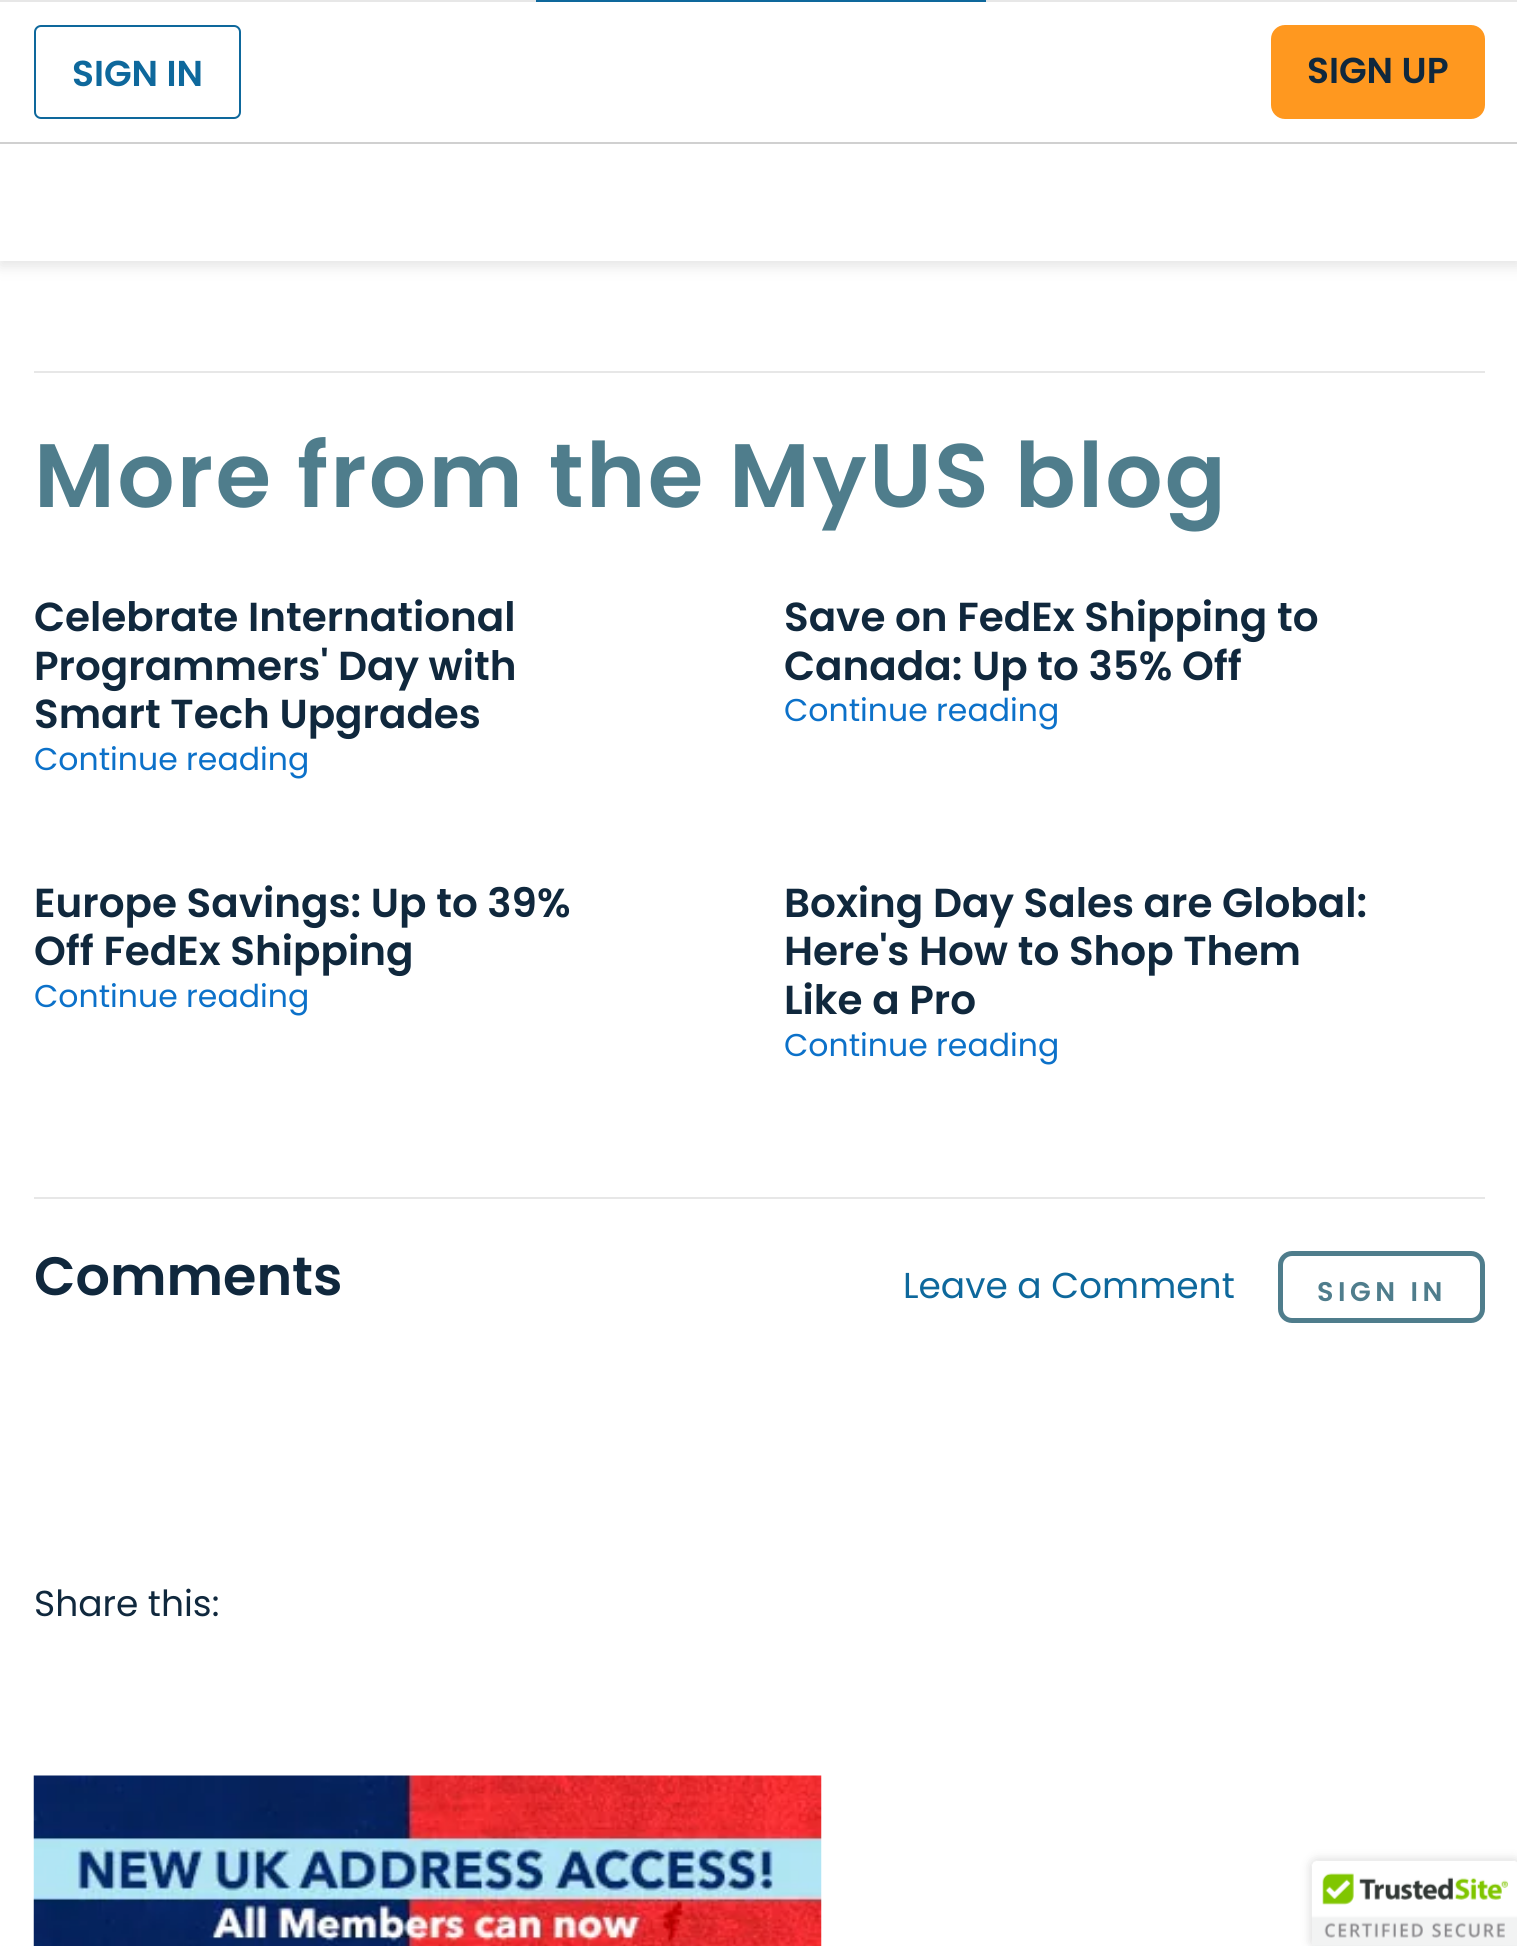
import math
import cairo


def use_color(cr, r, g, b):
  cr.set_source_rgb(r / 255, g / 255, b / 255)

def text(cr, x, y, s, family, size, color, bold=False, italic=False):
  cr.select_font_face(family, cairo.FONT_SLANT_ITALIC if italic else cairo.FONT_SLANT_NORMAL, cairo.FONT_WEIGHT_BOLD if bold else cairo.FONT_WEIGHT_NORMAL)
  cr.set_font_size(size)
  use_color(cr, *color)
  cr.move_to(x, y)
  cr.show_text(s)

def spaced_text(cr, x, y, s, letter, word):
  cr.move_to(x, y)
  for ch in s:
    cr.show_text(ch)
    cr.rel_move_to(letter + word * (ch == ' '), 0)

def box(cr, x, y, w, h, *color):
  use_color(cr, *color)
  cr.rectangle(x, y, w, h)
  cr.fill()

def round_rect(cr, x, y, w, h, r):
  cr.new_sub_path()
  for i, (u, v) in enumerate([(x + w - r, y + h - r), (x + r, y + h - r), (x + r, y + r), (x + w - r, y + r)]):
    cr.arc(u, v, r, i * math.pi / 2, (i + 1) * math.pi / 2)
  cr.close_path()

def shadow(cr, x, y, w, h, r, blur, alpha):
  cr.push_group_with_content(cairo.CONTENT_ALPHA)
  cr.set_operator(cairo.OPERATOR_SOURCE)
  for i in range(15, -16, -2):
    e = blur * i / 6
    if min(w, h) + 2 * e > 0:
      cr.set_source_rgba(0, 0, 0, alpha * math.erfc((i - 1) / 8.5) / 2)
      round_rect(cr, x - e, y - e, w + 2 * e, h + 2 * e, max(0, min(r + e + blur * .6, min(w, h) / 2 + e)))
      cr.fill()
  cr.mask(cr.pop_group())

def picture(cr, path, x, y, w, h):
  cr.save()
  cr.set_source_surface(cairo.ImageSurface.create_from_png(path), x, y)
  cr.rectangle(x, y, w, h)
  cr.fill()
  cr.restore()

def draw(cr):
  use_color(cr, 255, 255, 255)
  cr.paint()
  use_color(cr, 228, 228, 228)
  shadow(cr, 0, 5, 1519, 261, 0, 7, 1)
  box(cr, 0, 2, 1517, 259, 255, 255, 255)
  box(cr, 0, 0, 1517, 2, 231, 231, 231)
  cr.rectangle(537, -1, 448, 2)
  use_color(cr, 14, 104, 156)
  cr.stroke()
  round_rect(cr, 35, 26, 205, 92, 6)
  cr.stroke()
  use_color(cr, 255, 152, 31)
  round_rect(cr, 1271, 25, 214, 94, 14)
  cr.fill()
  box(cr, 0, 142, 1517, 2, 208, 208, 208)
  box(cr, 34, 371, 1451, 2, 231, 231, 231)
  box(cr, 34, 1197, 1451, 2, 231, 231, 231)
  round_rect(cr, 1280.5, 1253.5, 202, 67, 11.5)
  use_color(cr, 79, 125, 140)
  cr.set_line_width(5)
  cr.stroke()
  picture(cr, "img_01.png", 33, 1775, 789, 171)
  use_color(cr, 0, 0, 0)
  shadow(cr, 1312, 1861, 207, 85, 5, 5.5, 0.2)
  picture(cr, "img_02.png", 1311, 1860, 206, 86)
  text(cr, 72, 86, "SIGN IN", "Poppins SemiBold", 36, (14, 104, 156))
  text(cr, 1307, 83, "SIGN UP", "Poppins SemiBold", 36, (16, 40, 61))
  cr.set_font_size(90)
  use_color(cr, 79, 125, 140)
  spaced_text(cr, 34, 507, "More from the MyUS blog", 2.25, 0)
  text(cr, 34, 631, "Celebrate International", "Poppins SemiBold", 40.5, (16, 40, 61))
  text(cr, 34, 680, "Programmers' Day with", "Poppins SemiBold", 40.5, (16, 40, 61))
  text(cr, 34, 728, "Smart Tech Upgrades", "Poppins SemiBold", 40.5, (16, 40, 61))
  text(cr, 34, 770, "Continue reading", "Poppins", 31.5, (12, 113, 201))
  text(cr, 784, 631, "Save on FedEx Shipping to", "Poppins SemiBold", 40.5, (16, 40, 61))
  text(cr, 784, 680, "Canada: Up to 35% Off", "Poppins SemiBold", 40.5, (16, 40, 61))
  text(cr, 784, 721, "Continue reading", "Poppins", 31.5, (12, 113, 201))
  text(cr, 34, 917, "Europe Savings: Up to 39%", "Poppins SemiBold", 40.5, (16, 40, 61))
  text(cr, 34, 965, "Off FedEx Shipping", "Poppins SemiBold", 40.5, (16, 40, 61))
  text(cr, 34, 1007, "Continue reading", "Poppins", 31.5, (12, 113, 201))
  text(cr, 784, 917, "Boxing Day Sales are Global:", "Poppins SemiBold", 40.5, (16, 40, 61))
  text(cr, 784, 965, "Here's How to Shop Them", "Poppins SemiBold", 40.5, (16, 40, 61))
  text(cr, 784, 1014, "Like a Pro", "Poppins SemiBold", 40.5, (16, 40, 61))
  text(cr, 784, 1056, "Continue reading", "Poppins", 31.5, (12, 113, 201))
  text(cr, 34, 1295, "Comments", "Poppins SemiBold", 54, (16, 40, 61))
  text(cr, 903, 1298, "Leave a Comment", "Poppins", 36, (14, 104, 156))
  cr.select_font_face("Poppins SemiBold")
  cr.set_font_size(27)
  use_color(cr, 79, 125, 140)
  spaced_text(cr, 1317, 1301, "SIGN IN", 4.5, 0)
  text(cr, 34, 1616, "Share this:", "Poppins", 36, (16, 40, 61))


surface = cairo.ImageSurface(cairo.FORMAT_RGB24, 1517, 1946)
cr = cairo.Context(surface)
options = cairo.FontOptions()
options.set_hint_metrics(cairo.HINT_METRICS_OFF)
options.set_hint_style(cairo.HINT_STYLE_NONE)
cr.set_font_options(options)
cr.set_miter_limit(4)
draw(cr)
surface.write_to_png("out.png")
